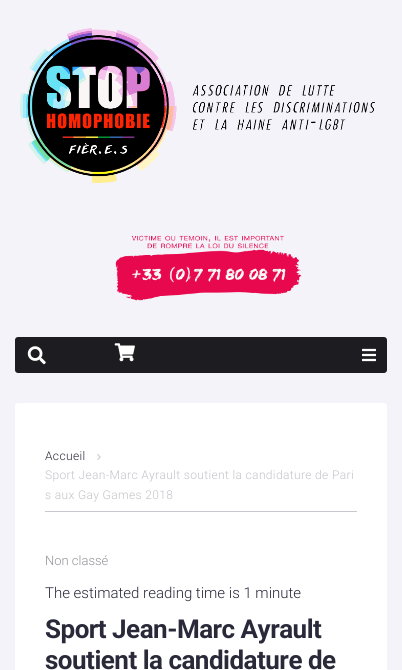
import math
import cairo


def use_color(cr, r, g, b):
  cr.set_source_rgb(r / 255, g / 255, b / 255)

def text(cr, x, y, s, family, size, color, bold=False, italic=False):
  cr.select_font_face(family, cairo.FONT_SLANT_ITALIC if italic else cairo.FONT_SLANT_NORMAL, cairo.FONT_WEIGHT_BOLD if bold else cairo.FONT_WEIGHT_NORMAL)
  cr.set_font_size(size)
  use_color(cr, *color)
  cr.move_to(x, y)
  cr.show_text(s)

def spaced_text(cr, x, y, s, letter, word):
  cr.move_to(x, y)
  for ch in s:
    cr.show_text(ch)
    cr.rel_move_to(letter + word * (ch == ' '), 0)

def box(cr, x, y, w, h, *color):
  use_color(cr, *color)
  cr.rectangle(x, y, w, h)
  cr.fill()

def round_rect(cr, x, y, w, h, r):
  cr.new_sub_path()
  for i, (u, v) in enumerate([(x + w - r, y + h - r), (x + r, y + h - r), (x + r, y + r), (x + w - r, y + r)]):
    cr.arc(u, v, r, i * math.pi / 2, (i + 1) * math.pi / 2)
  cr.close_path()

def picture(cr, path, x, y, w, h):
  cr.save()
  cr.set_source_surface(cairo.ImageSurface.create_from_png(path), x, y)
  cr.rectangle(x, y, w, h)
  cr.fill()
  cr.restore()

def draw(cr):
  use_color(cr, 243, 243, 249)
  cr.paint()
  picture(cr, "img_01.png", 20, 28, 355, 156)
  picture(cr, "img_02.png", 115, 235, 187, 66)
  use_color(cr, 28, 28, 33)
  round_rect(cr, 15, 337, 372, 36, 3)
  cr.fill()
  picture(cr, "img_03.png", 27, 346, 19, 19)
  picture(cr, "img_04.png", 114, 343, 21, 19)
  picture(cr, "img_05.png", 362, 348, 14, 14)
  use_color(cr, 255, 255, 255)
  round_rect(cr, 15, 403, 372, 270, 3)
  cr.fill()
  box(cr, 45, 511, 312, 1, 200, 200, 206)
  picture(cr, "img_06.png", 97, 454, 4, 6)
  cr.select_font_face("Roboto Light")
  cr.set_font_size(12)
  use_color(cr, 41, 41, 58)
  spaced_text(cr, 45, 460, "Accueil", 0.35, 0)
  use_color(cr, 195, 195, 201)
  spaced_text(cr, 45, 479, "Sport Jean-Marc Ayrault soutient la candidature de Pari", 0.35, 0)
  spaced_text(cr, 45, 499, "s aux Gay Games 2018", 0.35, 0)
  text(cr, 45, 565, "Non classé", "Roboto Light", 13, (147, 147, 153))
  text(cr, 45, 598, "The estimated reading time is 1 minute", "Roboto Light", 15, (41, 41, 58))
  cr.select_font_face("Roboto", cairo.FONT_SLANT_NORMAL, cairo.FONT_WEIGHT_BOLD)
  cr.set_font_size(26)
  spaced_text(cr, 45, 638, "Sport Jean-Marc Ayrault", -0.5, 0)
  spaced_text(cr, 45, 669, "soutient la candidature de", -0.5, 0)


surface = cairo.ImageSurface(cairo.FORMAT_RGB24, 402, 670)
cr = cairo.Context(surface)
options = cairo.FontOptions()
options.set_hint_metrics(cairo.HINT_METRICS_OFF)
options.set_hint_style(cairo.HINT_STYLE_NONE)
cr.set_font_options(options)
cr.set_miter_limit(4)
draw(cr)
surface.write_to_png("out.png")
